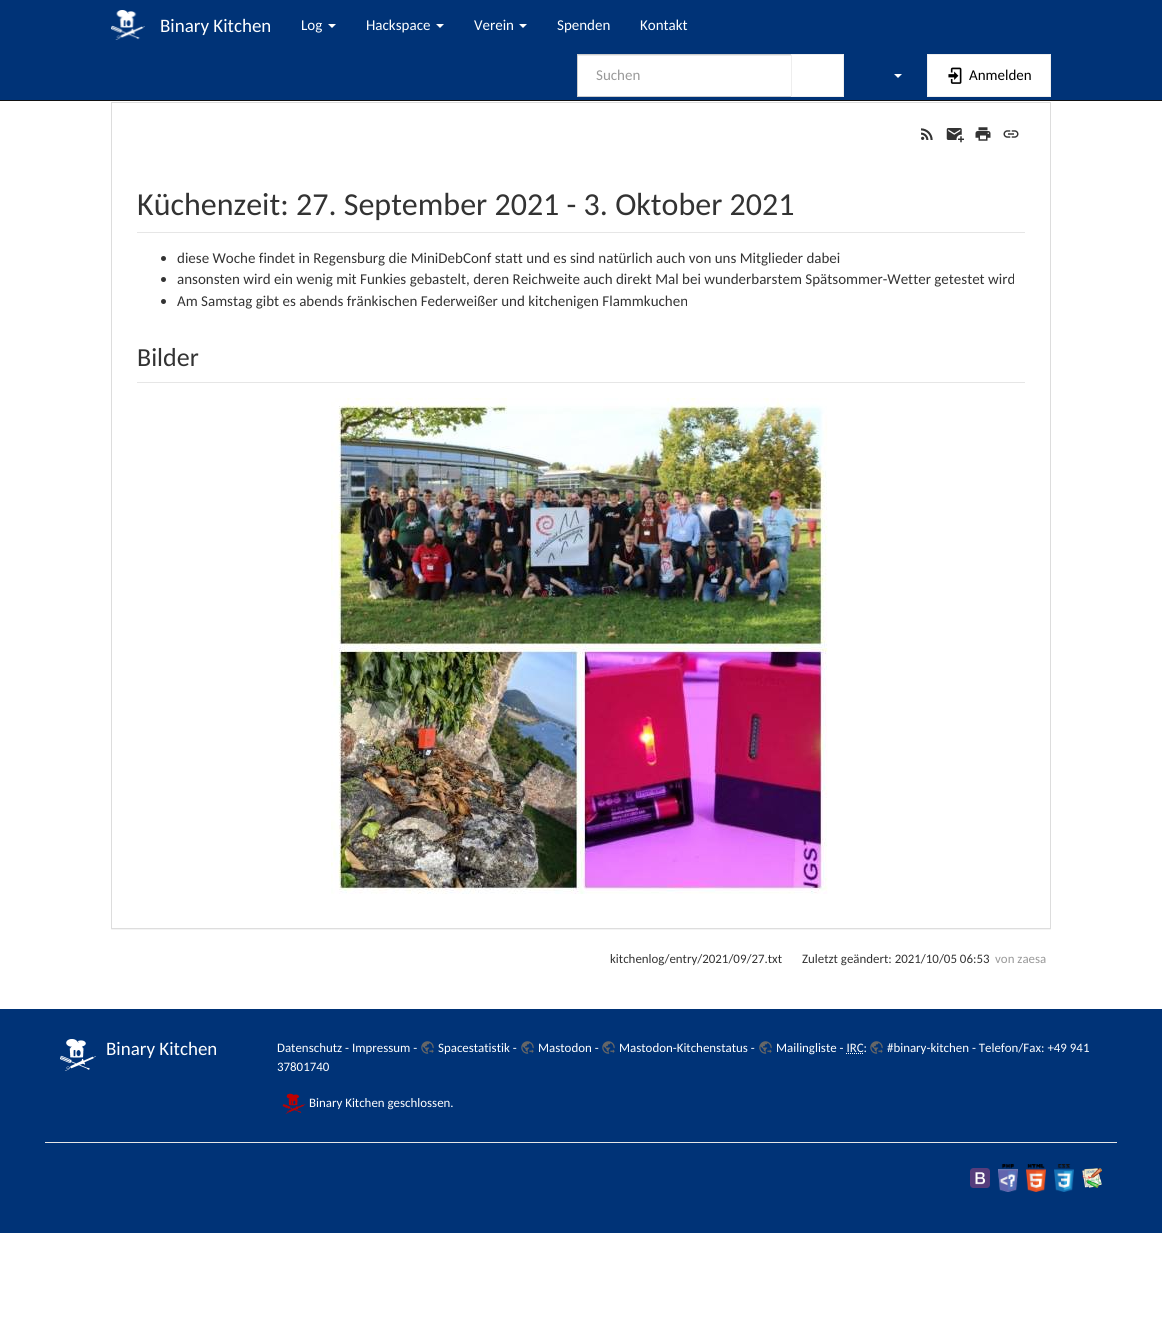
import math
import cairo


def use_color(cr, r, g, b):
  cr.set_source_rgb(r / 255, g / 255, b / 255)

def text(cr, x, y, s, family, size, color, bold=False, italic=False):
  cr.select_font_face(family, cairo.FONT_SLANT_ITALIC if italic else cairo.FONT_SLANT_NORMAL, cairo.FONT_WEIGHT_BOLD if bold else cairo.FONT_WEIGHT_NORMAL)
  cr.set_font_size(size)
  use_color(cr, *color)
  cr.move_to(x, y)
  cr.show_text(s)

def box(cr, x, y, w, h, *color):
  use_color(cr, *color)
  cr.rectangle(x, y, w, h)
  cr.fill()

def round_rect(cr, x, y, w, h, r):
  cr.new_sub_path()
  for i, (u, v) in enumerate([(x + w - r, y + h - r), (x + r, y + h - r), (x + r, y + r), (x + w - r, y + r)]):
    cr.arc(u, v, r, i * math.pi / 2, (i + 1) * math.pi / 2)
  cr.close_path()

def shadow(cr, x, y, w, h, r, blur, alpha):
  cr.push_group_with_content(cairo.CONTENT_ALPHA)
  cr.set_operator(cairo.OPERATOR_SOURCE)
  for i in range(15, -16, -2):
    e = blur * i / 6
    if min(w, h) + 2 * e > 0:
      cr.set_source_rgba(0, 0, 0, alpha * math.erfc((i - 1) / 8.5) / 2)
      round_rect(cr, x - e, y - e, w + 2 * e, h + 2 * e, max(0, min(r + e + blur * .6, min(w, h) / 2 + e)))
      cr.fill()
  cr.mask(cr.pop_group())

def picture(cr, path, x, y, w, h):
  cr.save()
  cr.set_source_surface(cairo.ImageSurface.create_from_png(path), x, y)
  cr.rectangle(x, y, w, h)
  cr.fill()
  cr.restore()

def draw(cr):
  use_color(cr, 255, 255, 255)
  cr.paint()
  box(cr, 0, 0, 1162, 100, 0, 51, 119)
  cr.save()
  cr.rectangle(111, 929, 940, 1)
  cr.clip()
  use_color(cr, 0, 0, 0)
  shadow(cr, 111, 103, 940, 827, 0, 0.5, 0.05)
  cr.restore()
  box(cr, 0, 100, 1162, 1, 18, 18, 18)
  picture(cr, "img_01.png", 111, 10, 34, 30)
  use_color(cr, 255, 255, 255)
  cr.new_path()
  cr.move_to(328, 24)
  cr.line_to(336, 24)
  cr.line_to(332, 28)
  cr.close_path()
  cr.fill()
  cr.new_path()
  cr.move_to(436, 24)
  cr.line_to(444, 24)
  cr.line_to(440, 28)
  cr.close_path()
  cr.fill()
  cr.new_path()
  cr.move_to(519, 24)
  cr.line_to(527, 24)
  cr.line_to(523, 28)
  cr.close_path()
  cr.fill()
  box(cr, 578, 56, 213, 40, 255, 255, 255)
  box(cr, 578, 55, 213, 1, 236, 236, 236)
  cr.rectangle(577.5, 54.5, 214, 42)
  use_color(cr, 204, 204, 204)
  cr.set_line_width(1)
  cr.stroke()
  use_color(cr, 255, 255, 255)
  cr.rectangle(791.5, 54.5, 52, 42)
  cr.fill_preserve()
  use_color(cr, 238, 238, 238)
  cr.stroke()
  use_color(cr, 255, 255, 255)
  cr.new_path()
  cr.move_to(894, 74)
  cr.line_to(902, 74)
  cr.line_to(898, 78)
  cr.close_path()
  cr.fill()
  cr.rectangle(927.5, 54.5, 123, 42)
  cr.fill_preserve()
  use_color(cr, 238, 238, 238)
  cr.stroke()
  picture(cr, "img_02.png", 948, 67, 14, 17)
  cr.rectangle(111.5, 102.5, 939, 826)
  use_color(cr, 221, 221, 221)
  cr.stroke()
  picture(cr, "img_03.png", 921, 128, 12, 12)
  picture(cr, "img_04.png", 946, 128, 18, 15)
  picture(cr, "img_05.png", 975, 127, 16, 14)
  picture(cr, "img_06.png", 1003, 130, 16, 8)
  box(cr, 137, 232, 888, 1, 230, 230, 230)
  use_color(cr, 51, 51, 51)
  cr.arc(163.5, 258.5, 2.5, 0, 2 * math.pi)
  cr.fill()
  cr.arc(163.5, 279.5, 2.5, 0, 2 * math.pi)
  cr.fill()
  cr.arc(163.5, 301.5, 2.5, 0, 2 * math.pi)
  cr.fill()
  box(cr, 137, 382, 888, 1, 230, 230, 230)
  picture(cr, "img_07.png", 331, 398, 497, 496)
  box(cr, 0, 1009, 1162, 224, 0, 51, 119)
  picture(cr, "img_08.png", 60, 1039, 36, 32)
  picture(cr, "img_09.png", 421, 1041, 13, 13)
  picture(cr, "img_09.png", 521, 1041, 13, 13)
  picture(cr, "img_09.png", 602, 1041, 13, 13)
  picture(cr, "img_09.png", 759, 1041, 13, 13)
  picture(cr, "img_09.png", 870, 1041, 13, 13)
  cr.new_path()
  cr.move_to(846, 1053.5)
  cr.line_to(863, 1053.5)
  use_color(cr, 255, 255, 255)
  cr.set_dash([1, 1])
  cr.stroke()
  picture(cr, "img_10.png", 282, 1093, 24, 21)
  box(cr, 45, 1142, 1072, 1, 230, 230, 230)
  picture(cr, "img_11.png", 970, 1168, 20, 20)
  picture(cr, "img_12.png", 998, 1164, 20, 28)
  picture(cr, "img_13.png", 1026, 1164, 20, 28)
  picture(cr, "img_14.png", 1054, 1164, 20, 28)
  picture(cr, "img_15.png", 1082, 1168, 20, 20)
  text(cr, 160, 32, "Binary Kitchen", "Carlito", 19, (255, 255, 255))
  text(cr, 301, 30, "Log", "Carlito", 15, (255, 255, 255))
  text(cr, 366, 30, "Hackspace", "Carlito", 15, (255, 255, 255))
  text(cr, 474, 30, "Verein", "Carlito", 15, (255, 255, 255))
  text(cr, 557, 30, "Spenden", "Carlito", 15, (255, 255, 255))
  text(cr, 640, 30, "Kontakt", "Carlito", 15, (255, 255, 255))
  text(cr, 596, 80, "Suchen", "Carlito", 15, (153, 153, 153))
  text(cr, 969, 80, "Anmelden", "Carlito", 15, (0, 0, 0))
  text(cr, 137, 215, "Küchenzeit: 27. September 2021 - 3. Oktober 2021", "Carlito", 32, (51, 51, 51))
  text(cr, 177, 263, "diese Woche findet in Regensburg die MiniDebConf statt und es sind natürlich auch von uns Mitglieder dabei", "Carlito", 15, (51, 51, 51))
  text(cr, 177, 284, "ansonsten wird ein wenig mit Funkies gebastelt, deren Reichweite auch direkt Mal bei wunderbarstem Spätsommer-Wetter getestet wird", "Carlito", 15, (51, 51, 51))
  text(cr, 177, 306, "Am Samstag gibt es abends fränkischen Federweißer und kitchenigen Flammkuchen", "Carlito", 15, (51, 51, 51))
  text(cr, 137, 366, "Bilder", "Carlito", 26, (51, 51, 51))
  text(cr, 610, 963, "kitchenlog/entry/2021/09/27.txt", "Carlito", 12.9, (51, 51, 51))
  text(cr, 802, 963, "Zuletzt geändert: 2021/10/05 06:53", "Carlito", 12.9, (51, 51, 51))
  text(cr, 995, 963, "von zaesa", "Carlito", 12.9, (153, 153, 153))
  text(cr, 106, 1055, "Binary Kitchen", "Carlito", 19, (255, 255, 255))
  text(cr, 277, 1052, "Datenschutz - Impressum -", "Carlito", 12.9, (255, 255, 255))
  text(cr, 438, 1052, "Spacestatistik -", "Carlito", 12.9, (255, 255, 255))
  text(cr, 538, 1052, "Mastodon -", "Carlito", 12.9, (255, 255, 255))
  text(cr, 619, 1052, "Mastodon-Kitchenstatus -", "Carlito", 12.9, (255, 255, 255))
  text(cr, 776, 1052, "Mailingliste - IRC:", "Carlito", 12.9, (255, 255, 255))
  text(cr, 887, 1052, "#binary-kitchen - Telefon/Fax: +49 941", "Carlito", 12.9, (255, 255, 255))
  text(cr, 277, 1071, "37801740", "Carlito", 12.9, (255, 255, 255))
  text(cr, 309, 1107, "Binary Kitchen geschlossen.", "Carlito", 12.9, (255, 255, 255))


surface = cairo.ImageSurface(cairo.FORMAT_RGB24, 1162, 1324)
cr = cairo.Context(surface)
options = cairo.FontOptions()
options.set_hint_metrics(cairo.HINT_METRICS_OFF)
options.set_hint_style(cairo.HINT_STYLE_NONE)
cr.set_font_options(options)
cr.set_miter_limit(4)
draw(cr)
surface.write_to_png("out.png")
